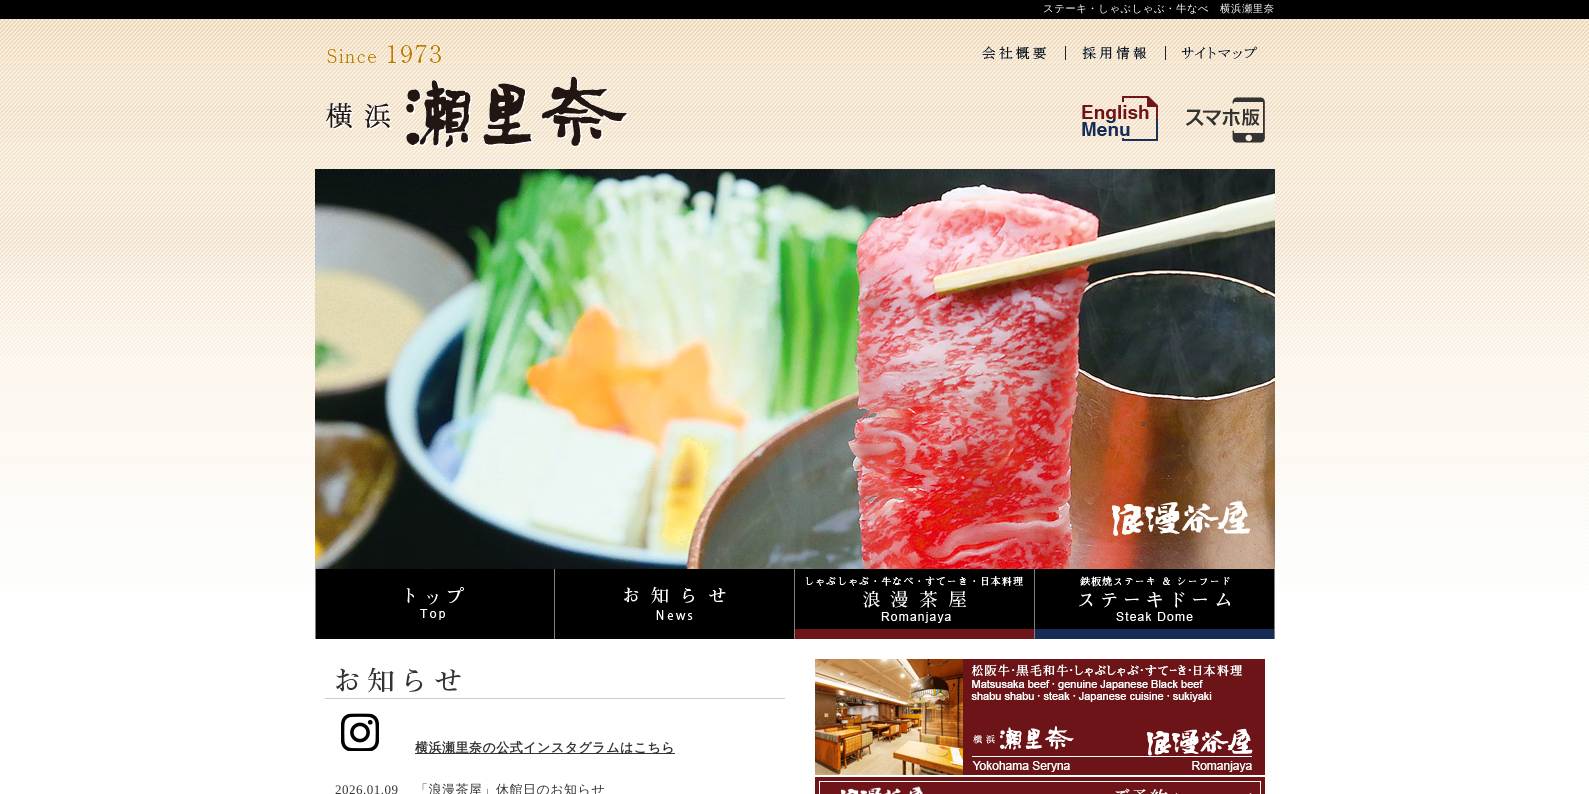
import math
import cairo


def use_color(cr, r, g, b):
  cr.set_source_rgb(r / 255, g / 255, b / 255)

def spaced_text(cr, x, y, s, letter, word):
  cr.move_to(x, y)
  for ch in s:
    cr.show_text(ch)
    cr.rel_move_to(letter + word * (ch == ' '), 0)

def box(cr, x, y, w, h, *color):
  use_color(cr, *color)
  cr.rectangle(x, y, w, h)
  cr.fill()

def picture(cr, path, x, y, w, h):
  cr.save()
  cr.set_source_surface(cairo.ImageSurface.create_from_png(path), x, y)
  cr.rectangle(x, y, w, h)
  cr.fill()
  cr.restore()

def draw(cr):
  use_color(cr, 255, 255, 255)
  cr.paint()
  picture(cr, "img_01.png", 0, 19, 1589, 572)
  box(cr, 0, 0, 1589, 19, 0, 0, 0)
  picture(cr, "img_02.png", 327, 45, 114, 18)
  picture(cr, "img_03.png", 982, 46, 64, 14)
  picture(cr, "img_04.png", 1065, 45, 81, 16)
  picture(cr, "img_05.png", 1165, 45, 92, 16)
  picture(cr, "img_06.png", 326, 76, 302, 73)
  picture(cr, "img_07.png", 1082, 96, 76, 45)
  picture(cr, "img_08.png", 1185, 97, 80, 46)
  picture(cr, "img_09.png", 315, 169, 960, 400)
  picture(cr, "img_10.png", 315, 569, 240, 70)
  picture(cr, "img_11.png", 555, 569, 240, 70)
  picture(cr, "img_12.png", 795, 569, 240, 70)
  picture(cr, "img_13.png", 1035, 569, 240, 70)
  picture(cr, "img_14.png", 325, 667, 460, 32)
  picture(cr, "img_15.png", 341, 713, 38, 38)
  box(cr, 415, 753, 260, 1, 51, 51, 51)
  picture(cr, "img_16.png", 815, 659, 450, 116)
  picture(cr, "img_17.png", 815, 777, 450, 17)
  cr.select_font_face("WenQuanYi Zen Hei Medium")
  cr.set_font_size(10.4)
  use_color(cr, 255, 255, 255)
  spaced_text(cr, 1043, 12, "ステーキ・しゃぶしゃぶ・牛なべ　横浜瀬里奈", 0.5, 0)
  cr.select_font_face("WenQuanYi Zen Hei", cairo.FONT_SLANT_NORMAL, cairo.FONT_WEIGHT_BOLD)
  cr.set_font_size(13)
  use_color(cr, 51, 51, 51)
  spaced_text(cr, 415, 752, "横浜瀬里奈の公式インスタグラムはこちら", 0.5, 0)
  cr.select_font_face("Liberation Serif")
  spaced_text(cr, 335, 794, "2026.01.09", 0.5, 0)
  cr.select_font_face("WenQuanYi Zen Hei Medium")
  spaced_text(cr, 415, 794, "「浪漫茶屋」休館日のお知らせ", 0.5, 0)


surface = cairo.ImageSurface(cairo.FORMAT_RGB24, 1589, 794)
cr = cairo.Context(surface)
options = cairo.FontOptions()
options.set_hint_metrics(cairo.HINT_METRICS_OFF)
options.set_hint_style(cairo.HINT_STYLE_NONE)
cr.set_font_options(options)
cr.set_miter_limit(4)
draw(cr)
surface.write_to_png("out.png")
